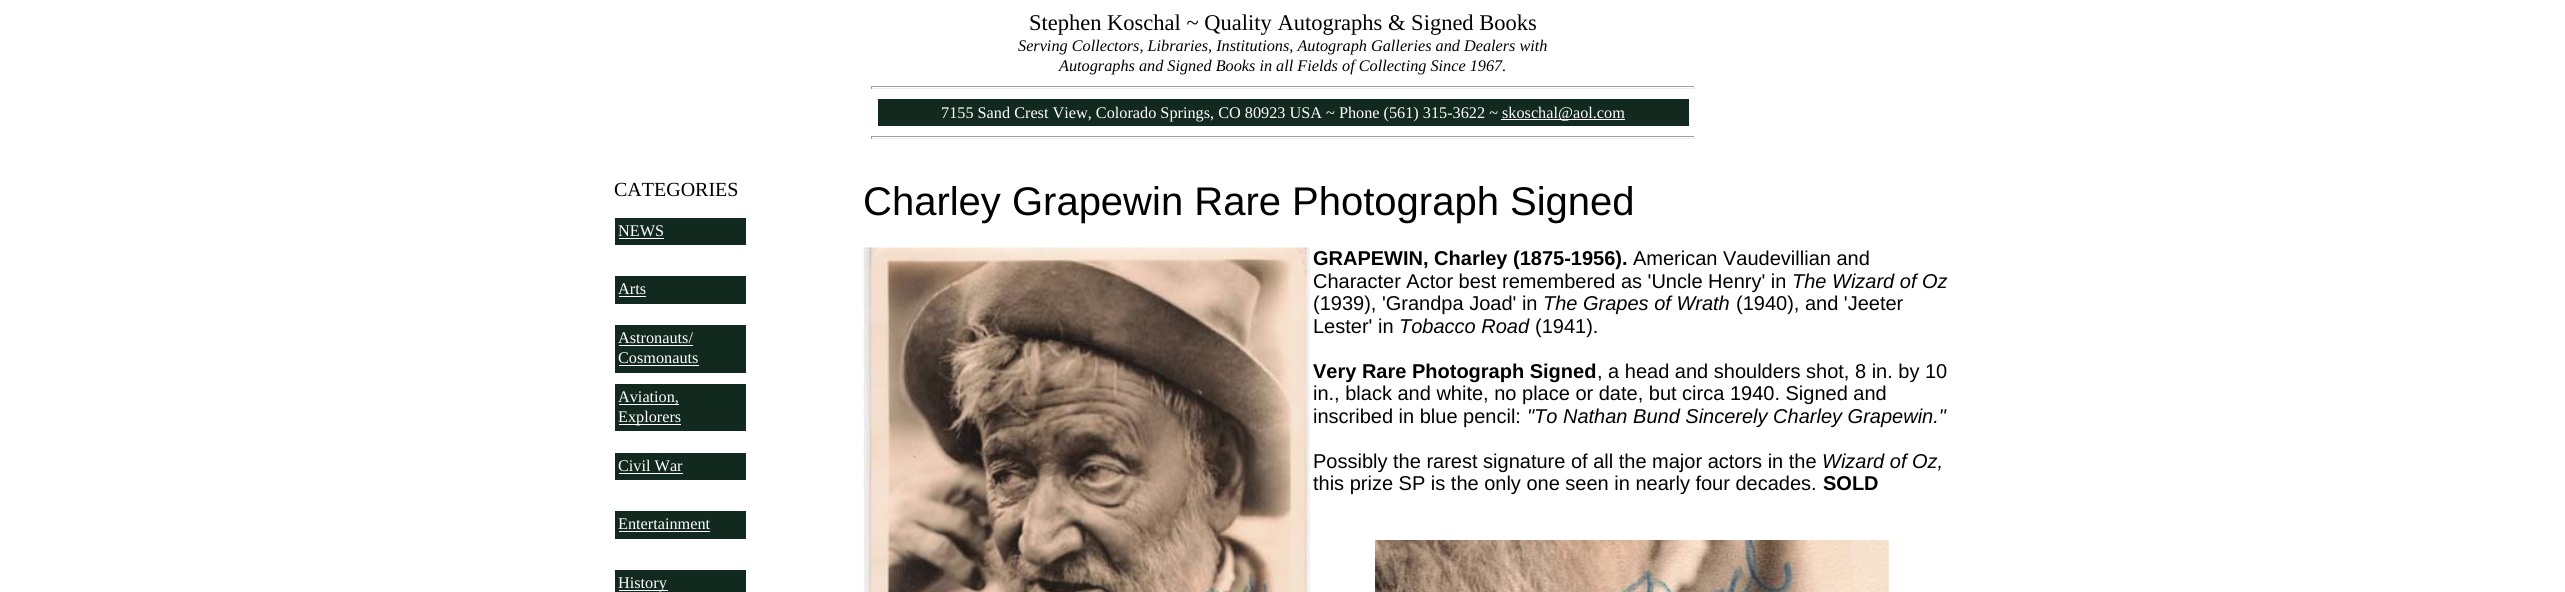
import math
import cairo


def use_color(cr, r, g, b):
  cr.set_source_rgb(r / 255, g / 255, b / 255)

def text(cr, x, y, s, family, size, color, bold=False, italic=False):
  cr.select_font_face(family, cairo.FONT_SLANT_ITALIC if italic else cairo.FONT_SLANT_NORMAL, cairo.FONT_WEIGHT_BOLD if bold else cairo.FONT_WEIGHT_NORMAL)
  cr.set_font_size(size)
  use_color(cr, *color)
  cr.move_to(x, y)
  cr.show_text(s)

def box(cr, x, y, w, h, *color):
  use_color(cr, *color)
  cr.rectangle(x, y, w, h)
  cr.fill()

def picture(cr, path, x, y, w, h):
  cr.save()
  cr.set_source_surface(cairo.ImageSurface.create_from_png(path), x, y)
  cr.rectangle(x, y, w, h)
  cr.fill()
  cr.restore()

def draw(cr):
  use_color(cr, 255, 255, 255)
  cr.paint()
  box(cr, 871, 86, 824, 1, 159, 159, 159)
  box(cr, 1694, 86, 1, 3, 238, 238, 238)
  box(cr, 871, 88, 824, 1, 238, 238, 238)
  box(cr, 871, 86, 1, 3, 159, 159, 159)
  box(cr, 878, 99, 811, 27, 18, 41, 32)
  box(cr, 1501, 119, 124, 1, 255, 255, 255)
  box(cr, 871, 136, 824, 1, 159, 159, 159)
  box(cr, 1694, 136, 1, 3, 238, 238, 238)
  box(cr, 871, 138, 824, 1, 238, 238, 238)
  box(cr, 871, 136, 1, 3, 159, 159, 159)
  box(cr, 615, 218, 131, 27, 18, 41, 32)
  box(cr, 619, 238, 45, 1, 255, 255, 255)
  box(cr, 615, 276, 131, 28, 18, 41, 32)
  box(cr, 619, 296, 27, 1, 255, 255, 255)
  box(cr, 615, 325, 131, 48, 18, 41, 32)
  box(cr, 619, 345, 74, 1, 255, 255, 255)
  box(cr, 619, 365, 80, 1, 255, 255, 255)
  box(cr, 615, 384, 131, 47, 18, 41, 32)
  box(cr, 619, 404, 60, 1, 255, 255, 255)
  box(cr, 619, 424, 62, 1, 255, 255, 255)
  box(cr, 615, 453, 131, 27, 18, 41, 32)
  box(cr, 619, 473, 64, 1, 255, 255, 255)
  box(cr, 615, 511, 131, 28, 18, 41, 32)
  box(cr, 619, 531, 91, 1, 255, 255, 255)
  box(cr, 615, 570, 131, 22, 18, 41, 32)
  box(cr, 619, 590, 49, 1, 255, 255, 255)
  picture(cr, "img_01.png", 863, 247, 447, 345)
  picture(cr, "img_02.png", 1375, 540, 514, 52)
  text(cr, 1029, 30, "Stephen Koschal ~ Quality Autographs & Signed Books", "Liberation Serif", 22.5, (0, 0, 0))
  text(cr, 1018, 51, "Serving Collectors, Libraries, Institutions, Autograph Galleries and Dealers with", "Liberation Serif", 16.25, (0, 0, 0), italic=True)
  text(cr, 1059, 71, "Autographs and Signed Books in all Fields of Collecting Since 1967.", "Liberation Serif", 16.25, (0, 0, 0), italic=True)
  text(cr, 941, 118, "7155 Sand Crest View, Colorado Springs, CO 80923 USA ~ Phone (561) 315-3622 ~", "Liberation Serif", 16.25, (255, 255, 255))
  text(cr, 1502, 118, "skoschal@aol.com", "Liberation Serif", 16.25, (255, 255, 255))
  text(cr, 614, 196, "CATEGORIES", "Liberation Serif", 20, (0, 0, 0))
  text(cr, 618, 236, "NEWS", "Liberation Serif", 16.25, (255, 255, 255))
  text(cr, 618, 294, "Arts", "Liberation Serif", 16.25, (255, 255, 255))
  text(cr, 618, 343, "Astronauts/", "Liberation Serif", 16.25, (255, 255, 255))
  text(cr, 618, 363, "Cosmonauts", "Liberation Serif", 16.25, (255, 255, 255))
  text(cr, 618, 402, "Aviation,", "Liberation Serif", 16.25, (255, 255, 255))
  text(cr, 618, 422, "Explorers", "Liberation Serif", 16.25, (255, 255, 255))
  text(cr, 618, 471, "Civil War", "Liberation Serif", 16.25, (255, 255, 255))
  text(cr, 618, 529, "Entertainment", "Liberation Serif", 16.25, (255, 255, 255))
  text(cr, 618, 588, "History", "Liberation Serif", 16.25, (255, 255, 255))
  text(cr, 863, 215, "Charley Grapewin Rare Photograph Signed", "Liberation Sans", 40, (0, 0, 0))
  text(cr, 1313, 265, "GRAPEWIN, Charley (1875-1956).", "Liberation Sans", 20, (0, 0, 0), bold=True)
  text(cr, 1633, 265, "American Vaudevillian and", "Liberation Sans", 20, (0, 0, 0))
  text(cr, 1313, 288, "Character Actor best remembered as 'Uncle Henry' in", "Liberation Sans", 20, (0, 0, 0))
  text(cr, 1792, 288, "The Wizard of Oz", "Liberation Sans", 20, (0, 0, 0), italic=True)
  text(cr, 1313, 310, "(1939), 'Grandpa Joad' in", "Liberation Sans", 20, (0, 0, 0))
  text(cr, 1543, 310, "The Grapes of Wrath", "Liberation Sans", 20, (0, 0, 0), italic=True)
  text(cr, 1736, 310, "(1940), and 'Jeeter", "Liberation Sans", 20, (0, 0, 0))
  text(cr, 1313, 333, "Lester' in", "Liberation Sans", 20, (0, 0, 0))
  text(cr, 1399, 333, "Tobacco Road", "Liberation Sans", 20, (0, 0, 0), italic=True)
  text(cr, 1535, 333, "(1941).", "Liberation Sans", 20, (0, 0, 0))
  text(cr, 1313, 378, "Very Rare Photograph Signed", "Liberation Sans", 20, (0, 0, 0), bold=True)
  text(cr, 1597, 378, ", a head and shoulders shot, 8 in. by 10", "Liberation Sans", 20, (0, 0, 0))
  text(cr, 1313, 400, "in., black and white, no place or date, but circa 1940. Signed and", "Liberation Sans", 20, (0, 0, 0))
  text(cr, 1313, 423, "inscribed in blue pencil:", "Liberation Sans", 20, (0, 0, 0))
  text(cr, 1527, 423, "\"To Nathan Bund Sincerely Charley Grapewin.\"", "Liberation Sans", 20, (0, 0, 0), italic=True)
  text(cr, 1313, 468, "Possibly the rarest signature of all the major actors in the", "Liberation Sans", 20, (0, 0, 0))
  text(cr, 1822, 468, "Wizard of Oz,", "Liberation Sans", 20, (0, 0, 0), italic=True)
  text(cr, 1313, 490, "this prize SP is the only one seen in nearly four decades.", "Liberation Sans", 20, (0, 0, 0))
  text(cr, 1823, 490, "SOLD", "Liberation Sans", 20, (0, 0, 0), bold=True)


surface = cairo.ImageSurface(cairo.FORMAT_RGB24, 2565, 592)
cr = cairo.Context(surface)
options = cairo.FontOptions()
options.set_hint_metrics(cairo.HINT_METRICS_OFF)
options.set_hint_style(cairo.HINT_STYLE_NONE)
cr.set_font_options(options)
cr.set_miter_limit(4)
draw(cr)
surface.write_to_png("out.png")
